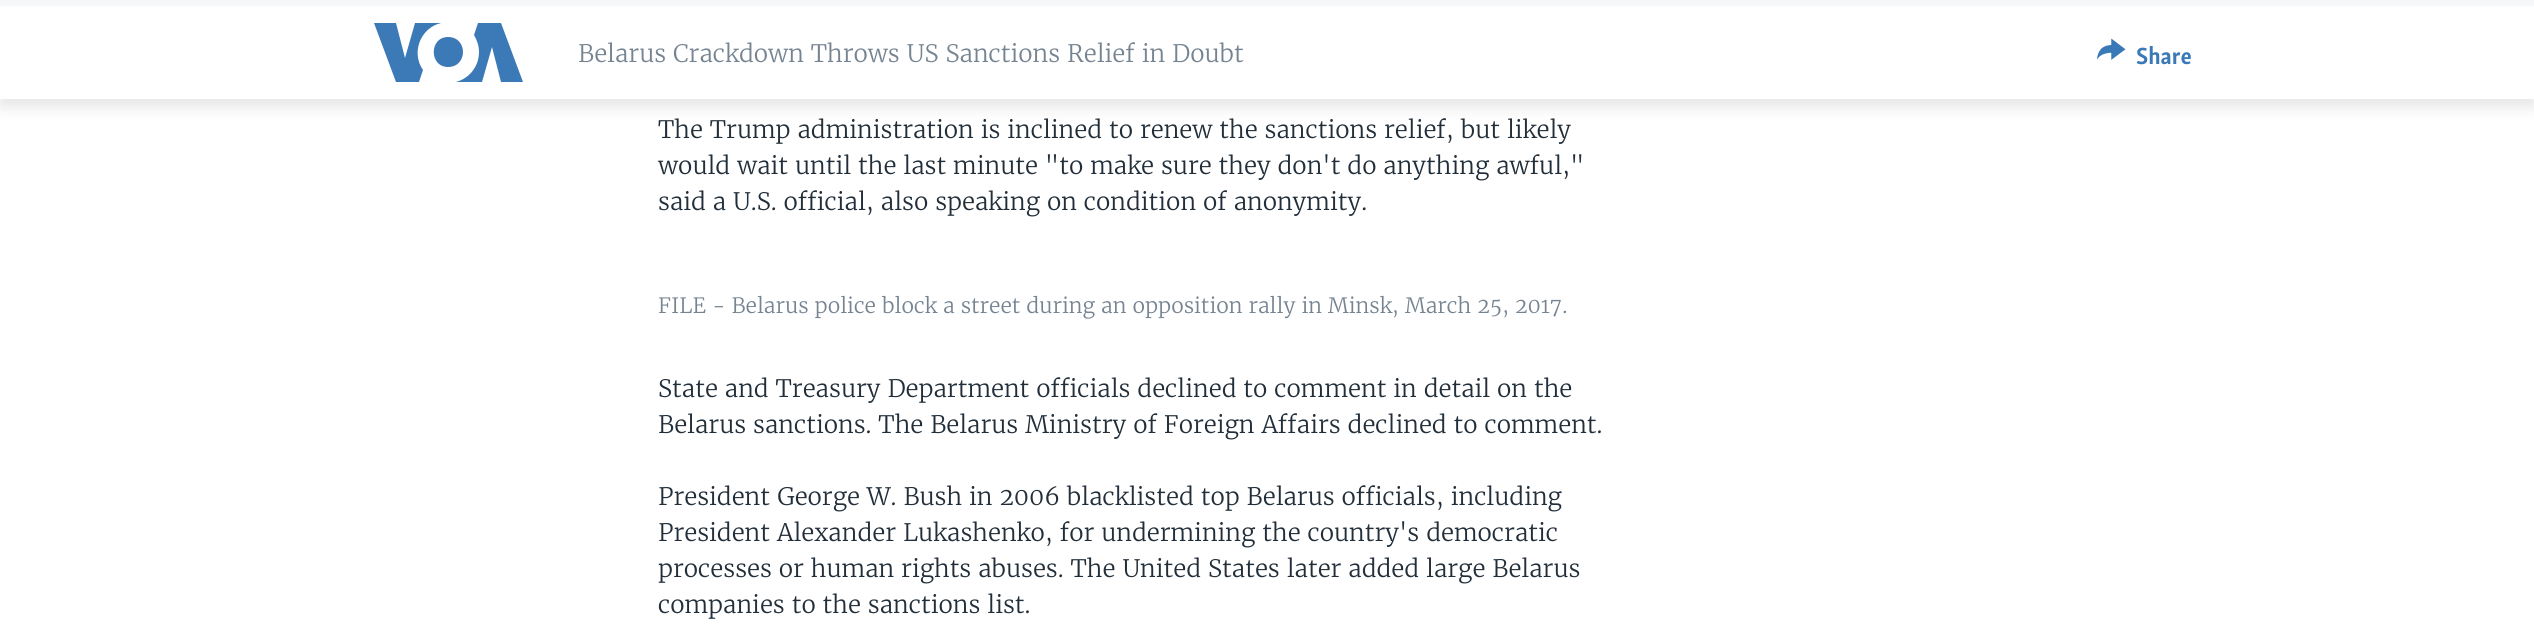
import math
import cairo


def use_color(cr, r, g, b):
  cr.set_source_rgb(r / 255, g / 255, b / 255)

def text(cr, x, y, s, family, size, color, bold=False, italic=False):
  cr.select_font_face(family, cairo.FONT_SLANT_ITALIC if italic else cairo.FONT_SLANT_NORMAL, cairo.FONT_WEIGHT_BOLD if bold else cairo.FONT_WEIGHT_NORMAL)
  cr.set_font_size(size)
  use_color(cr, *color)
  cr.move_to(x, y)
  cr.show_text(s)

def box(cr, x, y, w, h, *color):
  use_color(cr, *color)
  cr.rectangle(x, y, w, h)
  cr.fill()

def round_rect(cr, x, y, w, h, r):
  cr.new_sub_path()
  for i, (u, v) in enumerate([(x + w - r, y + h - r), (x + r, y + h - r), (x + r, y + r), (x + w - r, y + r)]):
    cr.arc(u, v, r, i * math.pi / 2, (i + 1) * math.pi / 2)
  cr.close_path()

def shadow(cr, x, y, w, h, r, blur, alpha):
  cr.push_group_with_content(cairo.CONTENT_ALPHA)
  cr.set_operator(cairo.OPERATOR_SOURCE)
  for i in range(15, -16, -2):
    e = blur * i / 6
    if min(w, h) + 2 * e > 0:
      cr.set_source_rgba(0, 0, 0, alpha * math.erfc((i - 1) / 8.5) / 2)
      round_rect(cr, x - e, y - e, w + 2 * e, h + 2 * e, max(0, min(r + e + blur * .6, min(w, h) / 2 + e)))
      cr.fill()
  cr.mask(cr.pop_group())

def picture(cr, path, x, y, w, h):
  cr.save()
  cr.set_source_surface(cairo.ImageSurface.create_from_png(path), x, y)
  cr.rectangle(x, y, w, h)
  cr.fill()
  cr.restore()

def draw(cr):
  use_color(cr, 255, 255, 255)
  cr.paint()
  use_color(cr, 0, 0, 0)
  shadow(cr, 0, 8, 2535, 99, 0, 7.5, 0.1)
  box(cr, 0, 6, 2534, 93, 255, 255, 255)
  box(cr, 0, 0, 2534, 6, 246, 247, 248)
  use_color(cr, 59, 121, 183)
  cr.new_path()
  cr.move_to(423, 70)
  cr.line_to(419, 82)
  cr.line_to(396, 82)
  cr.line_to(374, 23)
  cr.line_to(396, 23)
  cr.line_to(405, 58)
  cr.line_to(415, 23)
  cr.line_to(441, 23)
  cr.curve_to(420, 28, 411, 53, 423, 70)
  cr.close_path()
  cr.move_to(448, 37)
  cr.curve_to(429, 37, 429, 67, 448, 67)
  cr.curve_to(468, 67, 468, 37, 448, 37)
  cr.close_path()
  cr.move_to(479, 52)
  cr.curve_to(479, 66, 470, 78, 456, 82)
  cr.line_to(482, 82)
  cr.line_to(492, 47)
  cr.line_to(501, 82)
  cr.line_to(523, 82)
  cr.line_to(501, 23)
  cr.line_to(478, 23)
  cr.line_to(474, 35)
  cr.curve_to(477, 40, 479, 46, 479, 52)
  cr.close_path()
  cr.fill()
  picture(cr, "img_01.png", 2097, 38, 29, 22)
  text(cr, 578, 62, "Belarus Crackdown Throws US Sanctions Relief in Doubt", "Merriweather Light", 24, (118, 132, 146))
  text(cr, 2136, 64, "Share", "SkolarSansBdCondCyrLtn", 24, (58, 121, 183), bold=True)
  text(cr, 658, 138, "The Trump administration is inclined to renew the sanctions relief, but likely", "Merriweather Light", 24, (34, 47, 58))
  text(cr, 658, 174, "would wait until the last minute \"to make sure they don't do anything awful,\"", "Merriweather Light", 24, (34, 47, 58))
  text(cr, 658, 210, "said a U.S. official, also speaking on condition of anonymity.", "Merriweather Light", 24, (34, 47, 58))
  text(cr, 658, 313, "FILE - Belarus police block a street during an opposition rally in Minsk, March 25, 2017.", "Merriweather Light", 21, (118, 132, 146))
  text(cr, 658, 397, "State and Treasury Department officials declined to comment in detail on the", "Merriweather Light", 24, (34, 47, 58))
  text(cr, 658, 433, "Belarus sanctions. The Belarus Ministry of Foreign Affairs declined to comment.", "Merriweather Light", 24, (34, 47, 58))
  text(cr, 658, 505, "President George W. Bush in 2006 blacklisted top Belarus officials, including", "Merriweather Light", 24, (34, 47, 58))
  text(cr, 658, 541, "President Alexander Lukashenko, for undermining the country's democratic", "Merriweather Light", 24, (34, 47, 58))
  text(cr, 658, 577, "processes or human rights abuses. The United States later added large Belarus", "Merriweather Light", 24, (34, 47, 58))
  text(cr, 658, 613, "companies to the sanctions list.", "Merriweather Light", 24, (34, 47, 58))


surface = cairo.ImageSurface(cairo.FORMAT_RGB24, 2534, 630)
cr = cairo.Context(surface)
options = cairo.FontOptions()
options.set_hint_metrics(cairo.HINT_METRICS_OFF)
options.set_hint_style(cairo.HINT_STYLE_NONE)
cr.set_font_options(options)
cr.set_miter_limit(4)
draw(cr)
surface.write_to_png("out.png")
